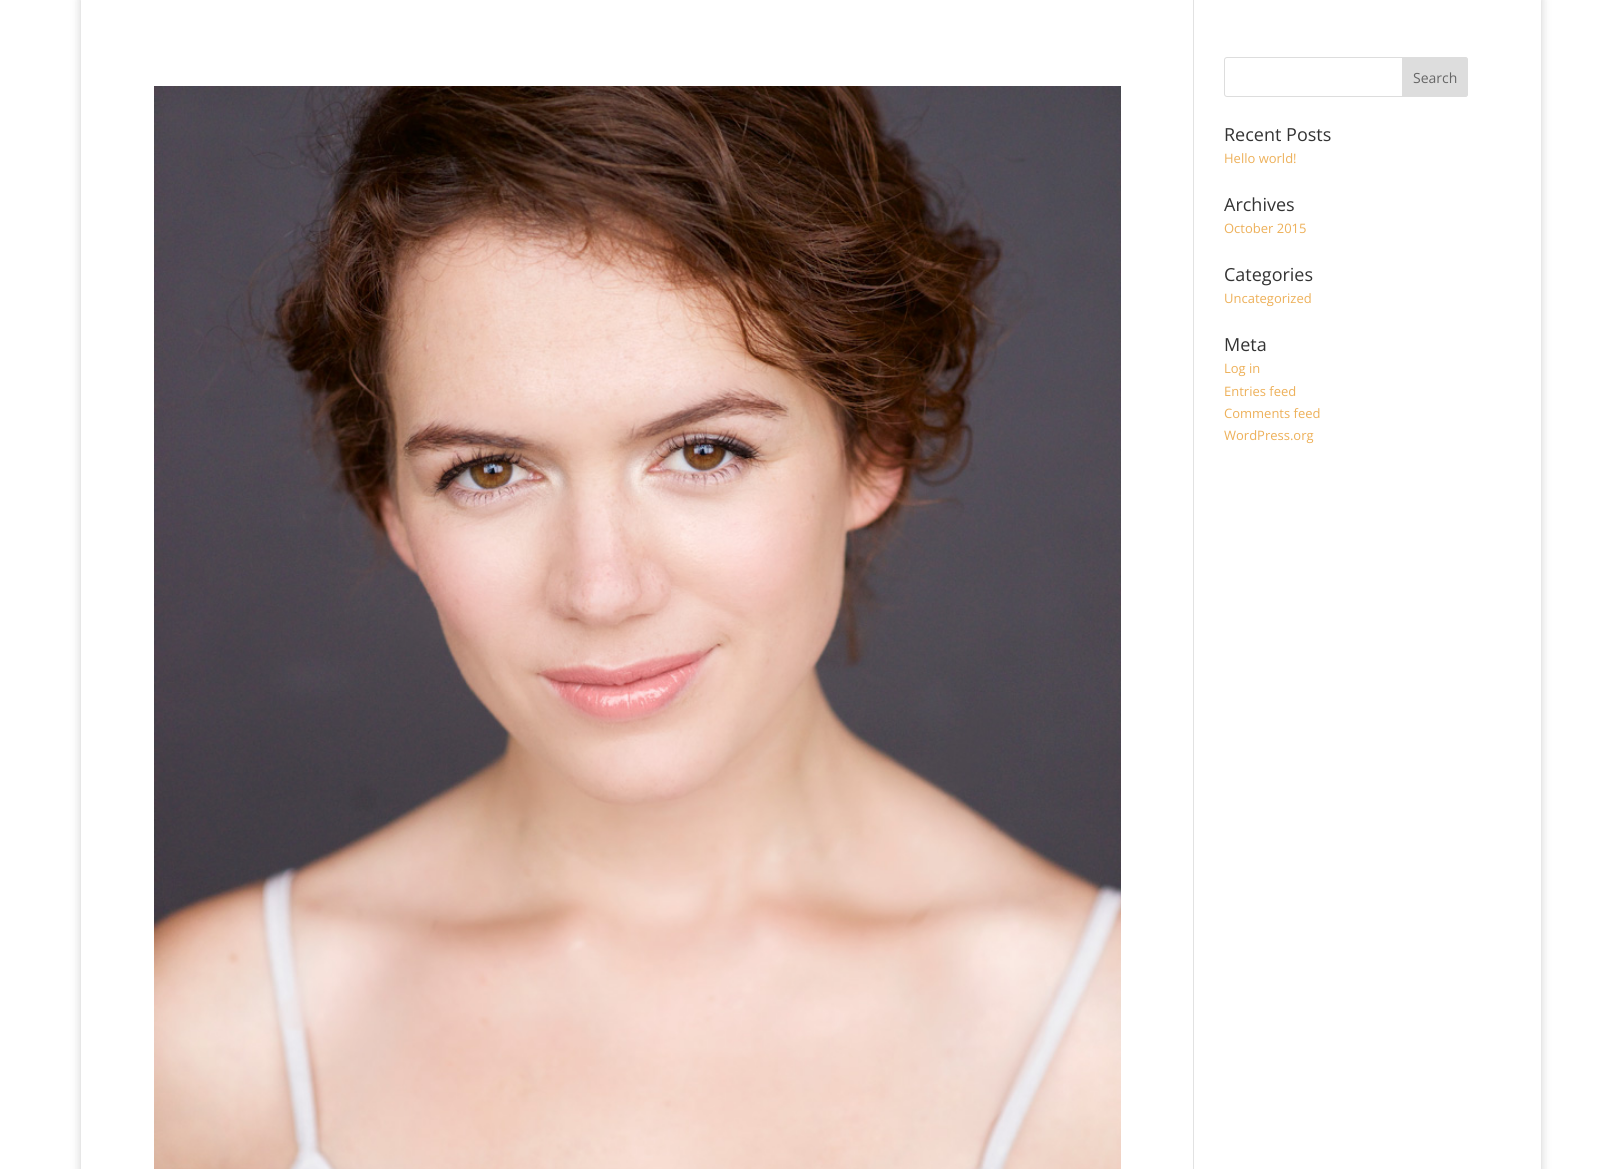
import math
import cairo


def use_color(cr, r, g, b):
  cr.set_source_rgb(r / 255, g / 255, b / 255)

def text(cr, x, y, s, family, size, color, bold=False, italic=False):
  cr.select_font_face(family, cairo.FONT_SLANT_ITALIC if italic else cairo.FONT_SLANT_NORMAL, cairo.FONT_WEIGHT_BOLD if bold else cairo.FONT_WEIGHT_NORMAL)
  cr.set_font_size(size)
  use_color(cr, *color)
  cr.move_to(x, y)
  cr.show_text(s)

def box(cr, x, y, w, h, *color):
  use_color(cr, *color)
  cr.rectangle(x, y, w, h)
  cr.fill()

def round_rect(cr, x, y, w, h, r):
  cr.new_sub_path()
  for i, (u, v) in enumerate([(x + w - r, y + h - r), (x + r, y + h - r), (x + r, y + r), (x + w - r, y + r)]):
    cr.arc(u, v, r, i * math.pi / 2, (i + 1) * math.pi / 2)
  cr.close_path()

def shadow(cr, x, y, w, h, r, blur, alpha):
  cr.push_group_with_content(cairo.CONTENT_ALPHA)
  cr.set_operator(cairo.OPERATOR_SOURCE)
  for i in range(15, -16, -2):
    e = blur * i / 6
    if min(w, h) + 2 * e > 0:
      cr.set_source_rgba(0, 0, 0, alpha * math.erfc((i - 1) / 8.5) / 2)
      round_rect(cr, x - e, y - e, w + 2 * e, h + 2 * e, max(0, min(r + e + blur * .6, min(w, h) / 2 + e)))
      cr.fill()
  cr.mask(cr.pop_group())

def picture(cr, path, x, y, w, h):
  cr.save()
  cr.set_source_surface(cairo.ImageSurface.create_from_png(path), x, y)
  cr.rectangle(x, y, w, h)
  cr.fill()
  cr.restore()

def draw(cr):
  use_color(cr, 255, 255, 255)
  cr.paint()
  cr.save()
  cr.set_fill_rule(cairo.FILL_RULE_EVEN_ODD)
  cr.new_path()
  cr.move_to(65, 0)
  cr.line_to(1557, 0)
  cr.line_to(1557, 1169)
  cr.line_to(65, 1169)
  cr.close_path()
  cr.move_to(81, -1)
  cr.line_to(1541, -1)
  cr.line_to(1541, 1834)
  cr.line_to(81, 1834)
  cr.close_path()
  cr.clip()
  use_color(cr, 0, 0, 0)
  shadow(cr, 81, -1, 1460, 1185, 0, 5, 0.2)
  cr.restore()
  box(cr, 1193, 0, 1, 1169, 226, 226, 226)
  picture(cr, "img_01.png", 154, 86, 967, 1083)
  round_rect(cr, 1224.5, 57.5, 243, 39, 2.5)
  use_color(cr, 221, 221, 221)
  cr.set_line_width(1)
  cr.stroke()
  cr.new_path()
  cr.move_to(1402.5, 57.5)
  cr.line_to(1465, 57.5)
  cr.curve_to(1466.5, 57.5, 1467.5, 58.5, 1467.5, 60)
  cr.line_to(1467.5, 94)
  cr.curve_to(1467.5, 95.5, 1466.5, 96.5, 1465, 96.5)
  cr.line_to(1402.5, 96.5)
  cr.close_path()
  cr.fill_preserve()
  cr.stroke()
  text(cr, 1413, 83, "Search", "Open Sans", 14, (102, 102, 102))
  text(cr, 1224, 141, "Recent Posts", "Open Sans", 18, (51, 51, 51))
  text(cr, 1224, 163, "Hello world!", "Open Sans", 13, (237, 176, 89))
  text(cr, 1224, 211, "Archives", "Open Sans", 18, (51, 51, 51))
  text(cr, 1224, 233, "October 2015", "Open Sans", 13, (237, 176, 89))
  text(cr, 1224, 281, "Categories", "Open Sans", 18, (51, 51, 51))
  text(cr, 1224, 303, "Uncategorized", "Open Sans", 13, (237, 176, 89))
  text(cr, 1224, 351, "Meta", "Open Sans", 18, (51, 51, 51))
  text(cr, 1224, 373, "Log in", "Open Sans", 13, (237, 176, 89))
  text(cr, 1224, 396, "Entries feed", "Open Sans", 13, (237, 176, 89))
  text(cr, 1224, 418, "Comments feed", "Open Sans", 13, (237, 176, 89))
  text(cr, 1224, 440, "WordPress.org", "Open Sans", 13, (237, 176, 89))


surface = cairo.ImageSurface(cairo.FORMAT_RGB24, 1622, 1169)
cr = cairo.Context(surface)
options = cairo.FontOptions()
options.set_hint_metrics(cairo.HINT_METRICS_OFF)
options.set_hint_style(cairo.HINT_STYLE_NONE)
cr.set_font_options(options)
cr.set_miter_limit(4)
draw(cr)
surface.write_to_png("out.png")
